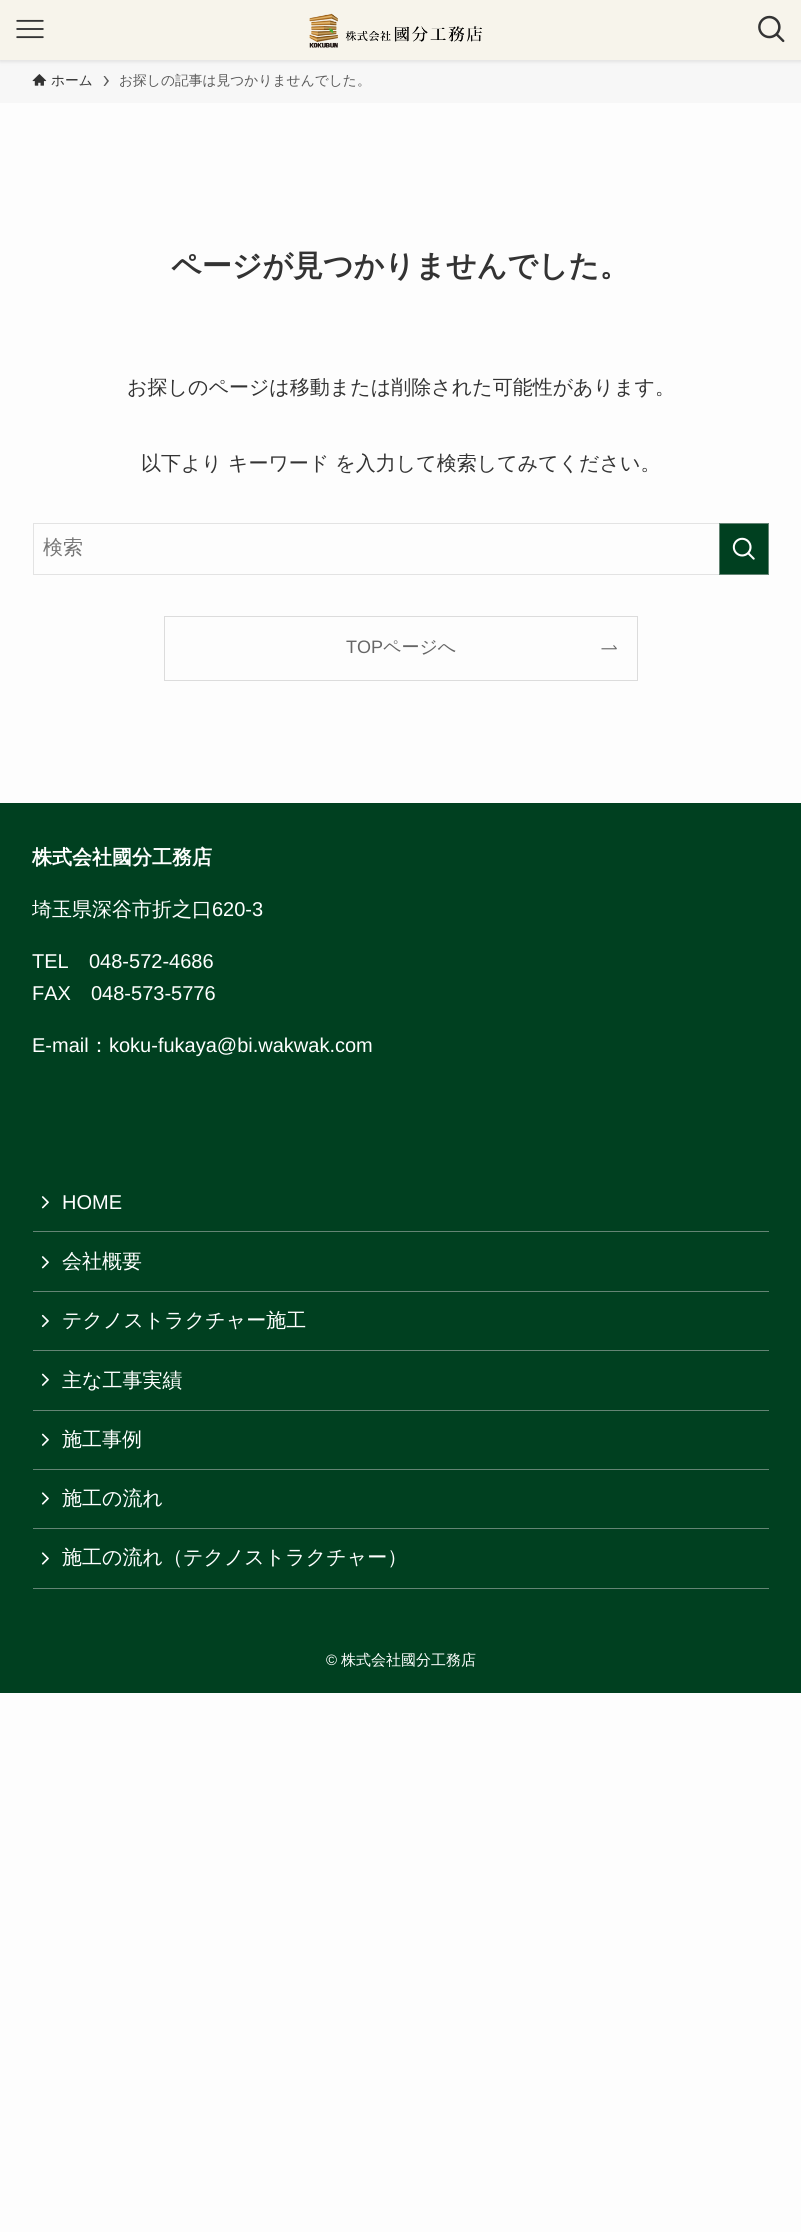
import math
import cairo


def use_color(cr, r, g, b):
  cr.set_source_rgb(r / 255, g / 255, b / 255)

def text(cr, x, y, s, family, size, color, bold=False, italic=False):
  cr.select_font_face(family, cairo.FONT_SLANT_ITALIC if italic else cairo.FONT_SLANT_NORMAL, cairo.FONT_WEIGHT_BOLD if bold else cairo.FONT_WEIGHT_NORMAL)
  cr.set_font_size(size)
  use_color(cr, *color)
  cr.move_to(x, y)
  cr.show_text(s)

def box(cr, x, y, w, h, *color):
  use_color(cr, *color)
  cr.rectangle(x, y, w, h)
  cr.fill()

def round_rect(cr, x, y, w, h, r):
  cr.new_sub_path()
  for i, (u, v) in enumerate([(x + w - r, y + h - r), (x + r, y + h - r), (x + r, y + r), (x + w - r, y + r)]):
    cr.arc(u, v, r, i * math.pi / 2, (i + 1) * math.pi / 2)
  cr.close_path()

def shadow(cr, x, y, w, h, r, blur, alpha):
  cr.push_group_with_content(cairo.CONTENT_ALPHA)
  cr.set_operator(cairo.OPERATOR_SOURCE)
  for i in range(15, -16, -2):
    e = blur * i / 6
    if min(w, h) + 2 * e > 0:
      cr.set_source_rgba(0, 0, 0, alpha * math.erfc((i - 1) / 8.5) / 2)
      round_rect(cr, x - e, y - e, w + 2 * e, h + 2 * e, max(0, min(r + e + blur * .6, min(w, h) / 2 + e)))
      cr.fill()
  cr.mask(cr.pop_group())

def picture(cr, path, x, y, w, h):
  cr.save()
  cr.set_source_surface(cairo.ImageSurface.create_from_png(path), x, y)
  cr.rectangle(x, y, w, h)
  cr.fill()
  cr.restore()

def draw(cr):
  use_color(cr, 253, 253, 253)
  cr.paint()
  box(cr, 0, 60, 801, 43, 247, 247, 247)
  use_color(cr, 0, 0, 0)
  shadow(cr, 0, 1, 801, 60, 0, 2.5, 0.12)
  box(cr, 0, 0, 801, 60, 247, 244, 235)
  picture(cr, "img_01.png", 16, 19, 28, 20)
  picture(cr, "img_02.png", 309, 13, 173, 35)
  picture(cr, "img_03.png", 758, 15, 27, 28)
  picture(cr, "img_04.png", 32, 74, 15, 12)
  use_color(cr, 90, 90, 90)
  cr.new_path()
  cr.move_to(105, 76)
  cr.line_to(103.5, 76)
  cr.line_to(107, 81)
  cr.line_to(103.5, 86)
  cr.line_to(105, 86)
  cr.line_to(109, 81)
  cr.close_path()
  cr.fill()
  cr.rectangle(33.5, 523.5, 735, 51)
  use_color(cr, 227, 227, 227)
  cr.set_line_width(1)
  cr.stroke()
  use_color(cr, 0, 64, 32)
  cr.rectangle(719.5, 523.5, 49, 51)
  cr.fill_preserve()
  use_color(cr, 100, 132, 116)
  cr.stroke()
  picture(cr, "img_05.png", 732, 537, 23, 23)
  cr.rectangle(164.5, 616.5, 473, 64)
  use_color(cr, 220, 220, 220)
  cr.stroke()
  picture(cr, "img_06.png", 601, 645, 16, 5)
  box(cr, 0, 803, 801, 890, 0, 64, 32)
  box(cr, 33, 1231, 736, 1, 100, 132, 116)
  picture(cr, "img_07.png", 41, 1196, 8, 13)
  box(cr, 33, 1291, 736, 1, 100, 132, 116)
  picture(cr, "img_07.png", 41, 1256, 8, 13)
  box(cr, 33, 1350, 736, 1, 100, 132, 116)
  picture(cr, "img_08.png", 41, 1314, 8, 14)
  box(cr, 33, 1410, 736, 1, 100, 132, 116)
  picture(cr, "img_09.png", 41, 1373, 8, 13)
  box(cr, 33, 1469, 736, 1, 100, 132, 116)
  picture(cr, "img_09.png", 41, 1433, 8, 13)
  box(cr, 33, 1528, 736, 1, 100, 132, 116)
  picture(cr, "img_10.png", 41, 1492, 8, 13)
  box(cr, 33, 1588, 736, 1, 100, 132, 116)
  picture(cr, "img_10.png", 41, 1552, 8, 13)
  text(cr, 51, 85, "ホーム", "WenQuanYi Zen Hei Medium", 13.75, (51, 51, 51))
  text(cr, 119, 85, "お探しの記事は見つかりませんでした。", "WenQuanYi Zen Hei Medium", 13.75, (90, 90, 90))
  text(cr, 171, 276, "ページが見つかりませんでした。", "WenQuanYi Zen Hei", 30, (51, 51, 51), bold=True)
  text(cr, 127, 394, "お探しのページは移動または削除された可能性があります。", "WenQuanYi Zen Hei Medium", 20, (51, 51, 51))
  text(cr, 141, 470, "以下より キーワード を入力して検索してみてください。", "WenQuanYi Zen Hei Medium", 20, (51, 51, 51))
  text(cr, 43, 554, "検索", "WenQuanYi Zen Hei Medium", 20, (117, 117, 117))
  text(cr, 346, 653, "TOP", "Liberation Sans", 18, (102, 102, 102))
  text(cr, 383, 653, "ページへ", "WenQuanYi Zen Hei Medium", 18, (102, 102, 102))
  text(cr, 32, 864, "株式会社國分工務店", "WenQuanYi Zen Hei", 20, (255, 255, 255), bold=True)
  text(cr, 32, 916, "埼玉県深谷市折之口", "WenQuanYi Zen Hei Medium", 20, (255, 255, 255))
  text(cr, 212, 916, "620-3", "Liberation Sans", 20, (255, 255, 255))
  text(cr, 32, 968, "TEL", "Liberation Sans", 20, (255, 255, 255))
  text(cr, 89, 968, "048-572-4686", "Liberation Sans", 20, (255, 255, 255))
  text(cr, 32, 1000, "FAX", "Liberation Sans", 20, (255, 255, 255))
  text(cr, 91, 1000, "048-573-5776", "Liberation Sans", 20, (255, 255, 255))
  text(cr, 32, 1052, "E-mail", "Liberation Sans", 20, (255, 255, 255))
  text(cr, 89, 1052, "：", "WenQuanYi Zen Hei Medium", 20, (255, 255, 255))
  text(cr, 109, 1052, "koku-fukaya@bi.wakwak.com", "Liberation Sans", 20, (255, 255, 255))
  text(cr, 62, 1209, "HOME", "Liberation Sans", 20, (255, 255, 255))
  text(cr, 62, 1268, "会社概要", "WenQuanYi Zen Hei Medium", 20, (255, 255, 255))
  text(cr, 62, 1327, "テクノストラクチャー施工", "WenQuanYi Zen Hei Medium", 20, (255, 255, 255))
  text(cr, 62, 1387, "主な工事実績", "WenQuanYi Zen Hei Medium", 20, (255, 255, 255))
  text(cr, 62, 1446, "施工事例", "WenQuanYi Zen Hei Medium", 20, (255, 255, 255))
  text(cr, 62, 1505, "施工の流れ", "WenQuanYi Zen Hei Medium", 20, (255, 255, 255))
  text(cr, 62, 1564, "施工の流れ（テクノストラクチャー）", "WenQuanYi Zen Hei Medium", 20, (255, 255, 255))
  text(cr, 326, 1665, "©", "Liberation Sans", 15, (255, 255, 255))
  text(cr, 341, 1665, "株式会社國分工務店", "WenQuanYi Zen Hei Medium", 15, (255, 255, 255))


surface = cairo.ImageSurface(cairo.FORMAT_RGB24, 801, 2232)
cr = cairo.Context(surface)
options = cairo.FontOptions()
options.set_hint_metrics(cairo.HINT_METRICS_OFF)
options.set_hint_style(cairo.HINT_STYLE_NONE)
cr.set_font_options(options)
cr.set_miter_limit(4)
draw(cr)
surface.write_to_png("out.png")
